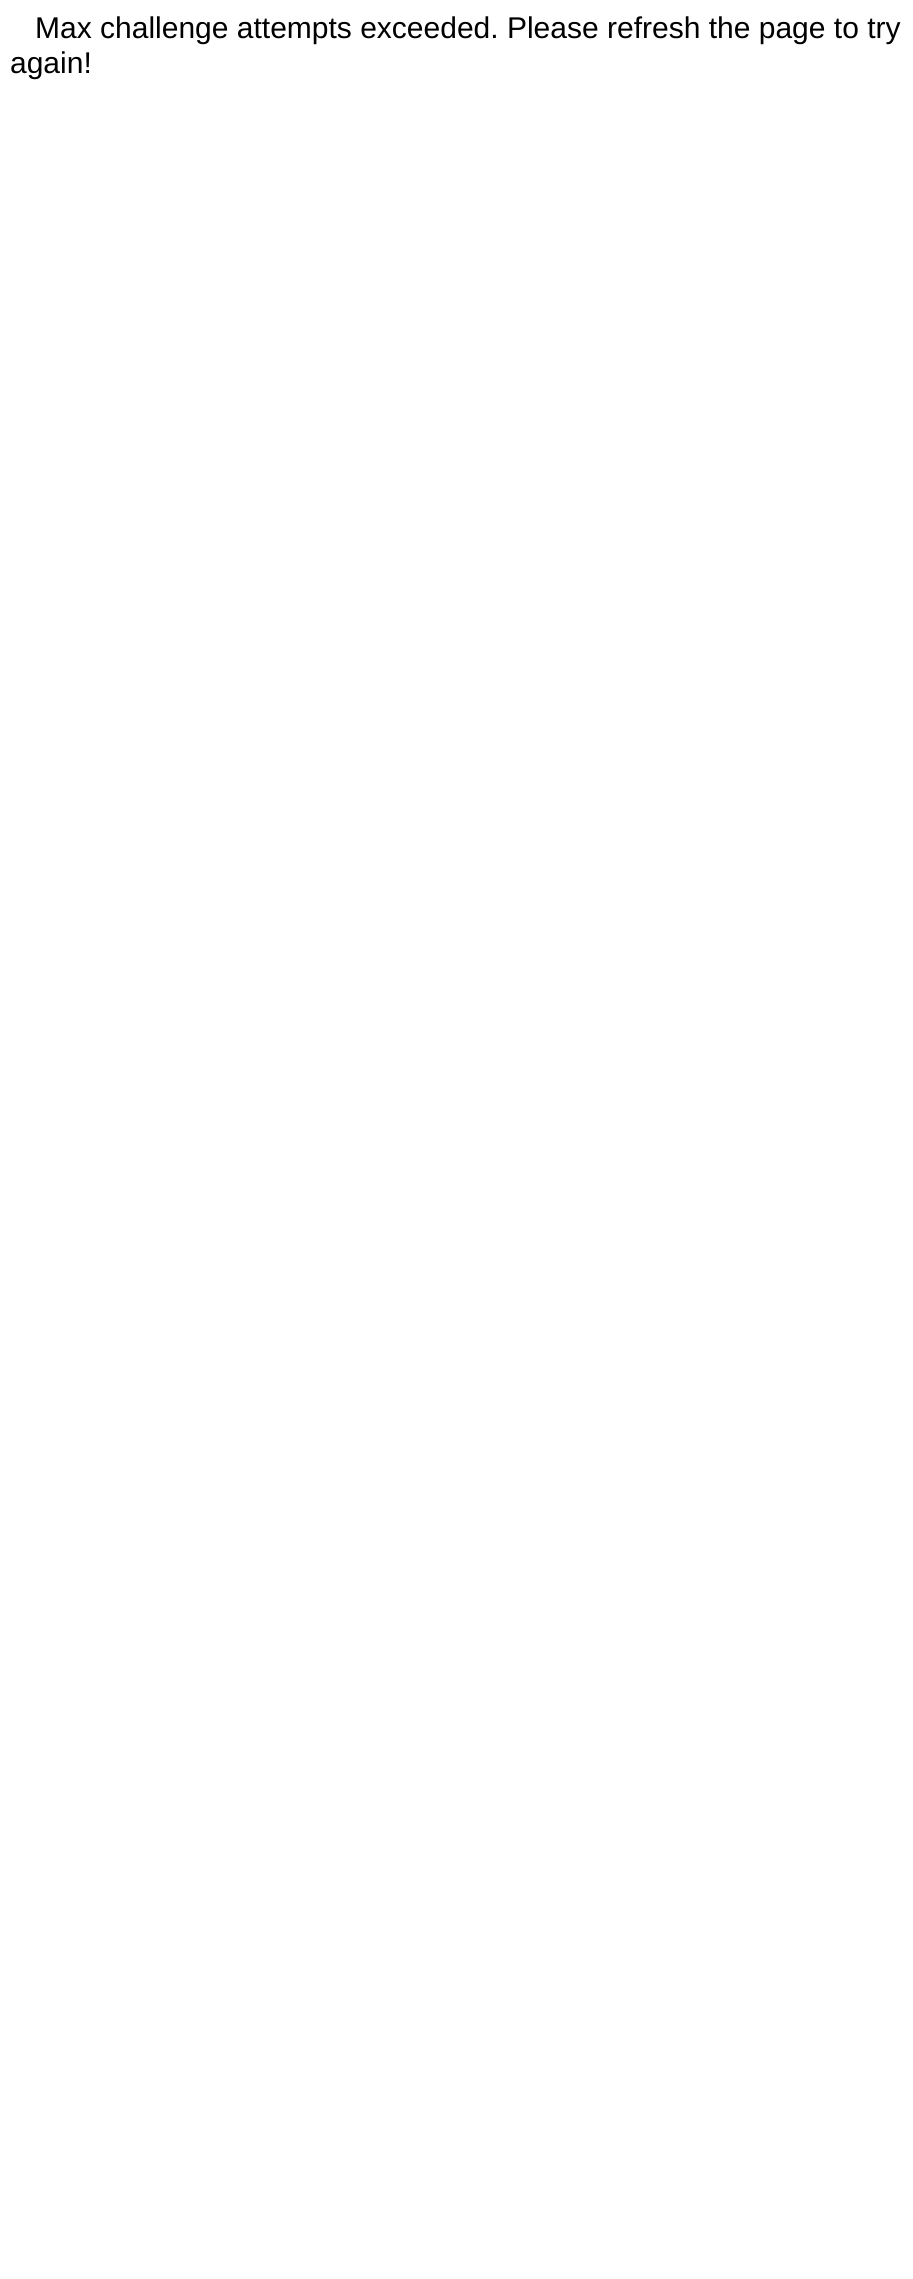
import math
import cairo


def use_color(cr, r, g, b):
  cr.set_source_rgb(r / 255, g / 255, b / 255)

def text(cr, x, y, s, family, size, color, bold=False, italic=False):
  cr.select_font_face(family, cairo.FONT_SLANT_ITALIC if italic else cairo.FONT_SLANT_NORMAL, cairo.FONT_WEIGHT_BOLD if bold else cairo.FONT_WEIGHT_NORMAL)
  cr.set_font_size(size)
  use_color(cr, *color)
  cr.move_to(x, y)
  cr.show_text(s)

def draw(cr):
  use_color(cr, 255, 255, 255)
  cr.paint()
  text(cr, 35, 38, "Max challenge attempts exceeded. Please refresh the page to try", "Liberation Sans", 30, (0, 0, 0))
  text(cr, 10, 73, "again!", "Liberation Sans", 30, (0, 0, 0))


surface = cairo.ImageSurface(cairo.FORMAT_RGB24, 913, 2279)
cr = cairo.Context(surface)
options = cairo.FontOptions()
options.set_hint_metrics(cairo.HINT_METRICS_OFF)
options.set_hint_style(cairo.HINT_STYLE_NONE)
cr.set_font_options(options)
cr.set_miter_limit(4)
draw(cr)
surface.write_to_png("out.png")
